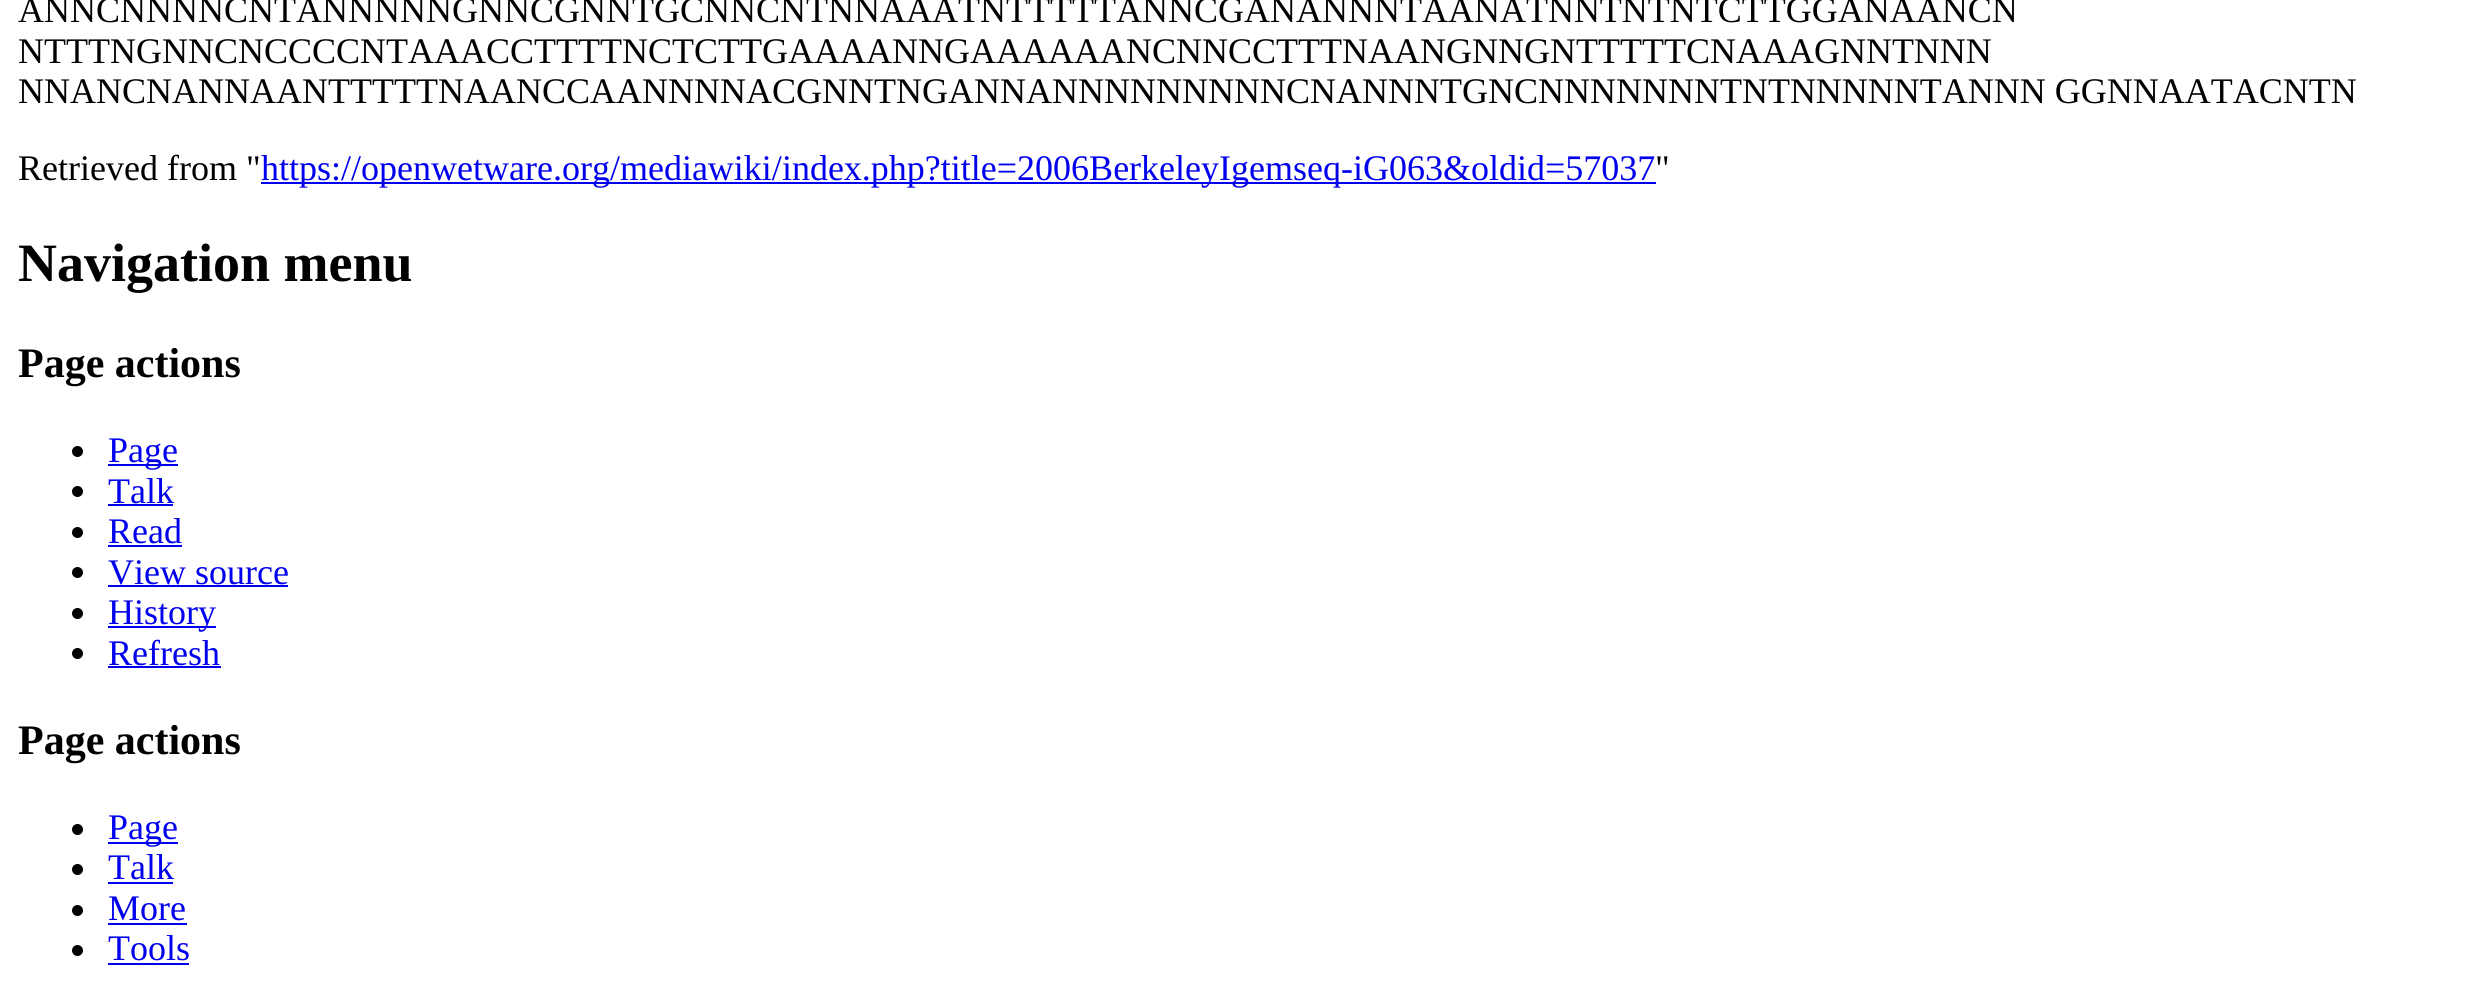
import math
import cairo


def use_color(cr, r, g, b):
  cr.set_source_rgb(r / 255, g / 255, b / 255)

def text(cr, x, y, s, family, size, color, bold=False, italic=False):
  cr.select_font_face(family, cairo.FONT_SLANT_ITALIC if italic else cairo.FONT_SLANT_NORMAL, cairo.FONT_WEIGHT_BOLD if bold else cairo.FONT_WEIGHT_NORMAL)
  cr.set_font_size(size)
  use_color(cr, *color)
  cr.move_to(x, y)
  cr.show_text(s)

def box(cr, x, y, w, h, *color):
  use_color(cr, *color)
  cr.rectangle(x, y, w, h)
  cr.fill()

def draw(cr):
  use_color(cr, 255, 255, 255)
  cr.paint()
  box(cr, 261, 182, 1395, 2, 0, 0, 238)
  use_color(cr, 0, 0, 0)
  cr.arc(77.5, 451.5, 5.5, 0, 2 * math.pi)
  cr.fill()
  box(cr, 108, 464, 70, 2, 0, 0, 238)
  use_color(cr, 0, 0, 0)
  cr.arc(77.5, 491.5, 5.5, 0, 2 * math.pi)
  cr.fill()
  box(cr, 108, 504, 65, 2, 0, 0, 238)
  use_color(cr, 0, 0, 0)
  cr.arc(77.5, 532.5, 5.5, 0, 2 * math.pi)
  cr.fill()
  box(cr, 108, 545, 74, 2, 0, 0, 238)
  use_color(cr, 0, 0, 0)
  cr.arc(77.5, 572.5, 5.5, 0, 2 * math.pi)
  cr.fill()
  box(cr, 108, 585, 180, 2, 0, 0, 238)
  use_color(cr, 0, 0, 0)
  cr.arc(77.5, 613.5, 5.5, 0, 2 * math.pi)
  cr.fill()
  box(cr, 108, 626, 108, 2, 0, 0, 238)
  use_color(cr, 0, 0, 0)
  cr.arc(77.5, 653.5, 5.5, 0, 2 * math.pi)
  cr.fill()
  box(cr, 108, 666, 113, 2, 0, 0, 238)
  use_color(cr, 0, 0, 0)
  cr.arc(77.5, 829.5, 5.5, 0, 2 * math.pi)
  cr.fill()
  box(cr, 108, 842, 70, 2, 0, 0, 238)
  use_color(cr, 0, 0, 0)
  cr.arc(77.5, 869.5, 5.5, 0, 2 * math.pi)
  cr.fill()
  box(cr, 108, 882, 65, 2, 0, 0, 238)
  use_color(cr, 0, 0, 0)
  cr.arc(77.5, 910.5, 5.5, 0, 2 * math.pi)
  cr.fill()
  box(cr, 108, 923, 79, 2, 0, 0, 238)
  use_color(cr, 0, 0, 0)
  cr.arc(77.5, 950.5, 5.5, 0, 2 * math.pi)
  cr.fill()
  box(cr, 108, 963, 81, 2, 0, 0, 238)
  text(cr, 18, 22, "ANNCNNNNCNTANNNNNGNNCGNNTGCNNCNTNNAAATNTTTTTANNCGANANNNTAANATNNTNTNTCTTGGANAANCN", "Liberation Serif", 36, (0, 0, 0))
  text(cr, 18, 63, "NTTTNGNNCNCCCCNTAAACCTTTTNCTCTTGAAAANNGAAAAAANCNNCCTTTNAANGNNGNTTTTTCNAAAGNNTNNN", "Liberation Serif", 36, (0, 0, 0))
  text(cr, 18, 103, "NNANCNANNAANTTTTTNAANCCAANNNNACGNNTNGANNANNNNNNNNNCNANNNTGNCNNNNNNNTNTNNNNNTANNN GGNNAATACNTN", "Liberation Serif", 36, (0, 0, 0))
  text(cr, 18, 180, "Retrieved from \"", "Liberation Serif", 36, (0, 0, 0))
  text(cr, 261, 180, "https://openwetware.org/mediawiki/index.php?title=2006BerkeleyIgemseq-iG063&oldid=57037", "Liberation Serif", 36, (0, 0, 238))
  text(cr, 1655, 180, "\"", "Liberation Serif", 36, (0, 0, 0))
  text(cr, 18, 281, "Navigation menu", "Liberation Serif", 54, (0, 0, 0), bold=True)
  text(cr, 18, 377, "Page actions", "Liberation Serif", 42, (0, 0, 0), bold=True)
  text(cr, 108, 462, "Page", "Liberation Serif", 36, (0, 0, 238))
  text(cr, 108, 503, "Talk", "Liberation Serif", 36, (0, 0, 238))
  text(cr, 108, 543, "Read", "Liberation Serif", 36, (0, 0, 238))
  text(cr, 108, 584, "View source", "Liberation Serif", 36, (0, 0, 238))
  text(cr, 108, 624, "History", "Liberation Serif", 36, (0, 0, 238))
  text(cr, 108, 665, "Refresh", "Liberation Serif", 36, (0, 0, 238))
  text(cr, 18, 754, "Page actions", "Liberation Serif", 42, (0, 0, 0), bold=True)
  text(cr, 108, 839, "Page", "Liberation Serif", 36, (0, 0, 238))
  text(cr, 108, 879, "Talk", "Liberation Serif", 36, (0, 0, 238))
  text(cr, 108, 920, "More", "Liberation Serif", 36, (0, 0, 238))
  text(cr, 108, 960, "Tools", "Liberation Serif", 36, (0, 0, 238))


surface = cairo.ImageSurface(cairo.FORMAT_RGB24, 2486, 994)
cr = cairo.Context(surface)
options = cairo.FontOptions()
options.set_hint_metrics(cairo.HINT_METRICS_OFF)
options.set_hint_style(cairo.HINT_STYLE_NONE)
cr.set_font_options(options)
cr.set_miter_limit(4)
draw(cr)
surface.write_to_png("out.png")
